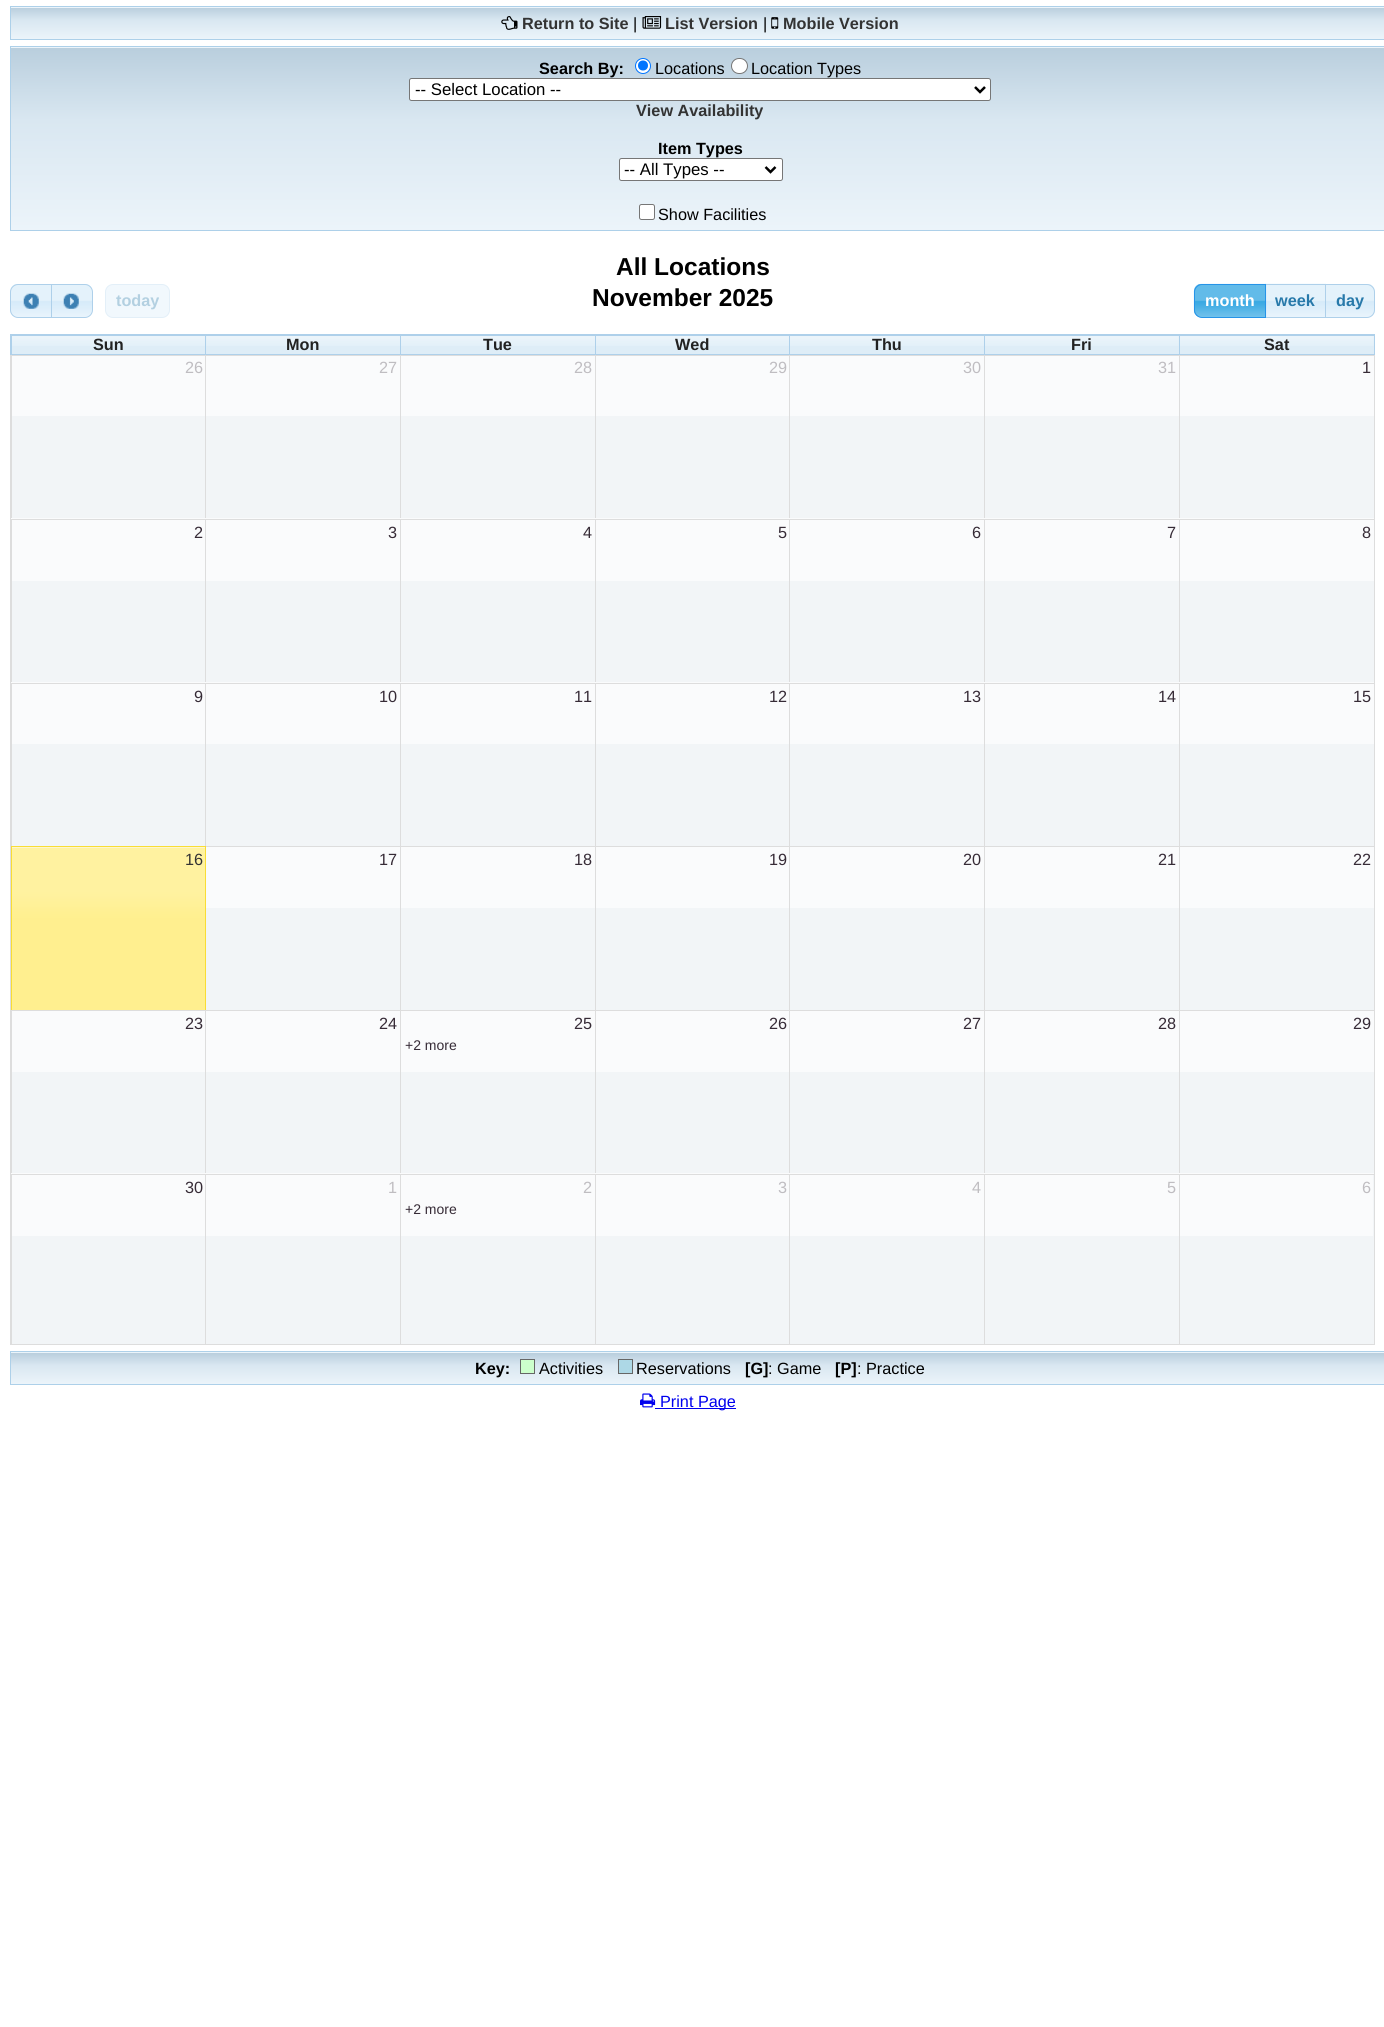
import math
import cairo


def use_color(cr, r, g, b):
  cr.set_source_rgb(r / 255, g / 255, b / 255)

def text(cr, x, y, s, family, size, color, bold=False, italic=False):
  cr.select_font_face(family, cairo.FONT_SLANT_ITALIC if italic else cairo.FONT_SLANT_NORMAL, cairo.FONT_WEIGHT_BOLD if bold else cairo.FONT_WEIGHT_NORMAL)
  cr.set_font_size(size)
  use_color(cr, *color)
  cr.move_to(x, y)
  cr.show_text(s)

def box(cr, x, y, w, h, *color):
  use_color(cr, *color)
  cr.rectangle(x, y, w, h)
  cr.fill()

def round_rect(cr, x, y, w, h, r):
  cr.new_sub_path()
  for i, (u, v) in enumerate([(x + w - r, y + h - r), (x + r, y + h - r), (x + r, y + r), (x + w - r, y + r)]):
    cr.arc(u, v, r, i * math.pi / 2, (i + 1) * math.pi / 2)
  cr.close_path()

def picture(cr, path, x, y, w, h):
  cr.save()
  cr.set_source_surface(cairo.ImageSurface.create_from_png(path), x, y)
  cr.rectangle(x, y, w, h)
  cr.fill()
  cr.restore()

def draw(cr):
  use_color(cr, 255, 255, 255)
  cr.paint()
  gradient = cairo.LinearGradient(700, -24, 700, 7.5)
  gradient.add_color_stop_rgba(0, 0.725, 0.808, 0.867, 1)
  gradient.add_color_stop_rgba(0.4, 0.851, 0.906, 0.945, 1)
  gradient.add_color_stop_rgba(1, 0.925, 0.957, 0.98, 1)
  cr.set_source(gradient)
  cr.rectangle(10, 7, 1374, 1)
  cr.fill()
  gradient = cairo.LinearGradient(700, 7.5, 700, 39)
  gradient.add_color_stop_rgba(0, 0.725, 0.808, 0.867, 1)
  gradient.add_color_stop_rgba(0.4, 0.851, 0.906, 0.945, 1)
  gradient.add_color_stop_rgba(1, 0.925, 0.957, 0.98, 1)
  cr.set_source(gradient)
  cr.rectangle(11, 8, 1373, 31)
  cr.fill()
  cr.rectangle(10.5, 6.5, 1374, 33)
  use_color(cr, 173, 208, 233)
  cr.set_line_width(1)
  cr.stroke()
  picture(cr, "img_01.png", 501, 16, 17, 14)
  picture(cr, "img_02.png", 642, 16, 20, 13)
  picture(cr, "img_03.png", 771, 17, 8, 12)
  gradient = cairo.LinearGradient(700, -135, 700, 48)
  gradient.add_color_stop_rgba(0, 0.725, 0.808, 0.867, 1)
  gradient.add_color_stop_rgba(0.4, 0.851, 0.906, 0.945, 1)
  gradient.add_color_stop_rgba(1, 0.925, 0.957, 0.98, 1)
  cr.set_source(gradient)
  cr.rectangle(10, 47, 1374, 1)
  cr.fill()
  gradient = cairo.LinearGradient(700, 47, 700, 230)
  gradient.add_color_stop_rgba(0, 0.725, 0.808, 0.867, 1)
  gradient.add_color_stop_rgba(0.4, 0.851, 0.906, 0.945, 1)
  gradient.add_color_stop_rgba(1, 0.925, 0.957, 0.98, 1)
  cr.set_source(gradient)
  cr.rectangle(11, 48, 1373, 182)
  cr.fill()
  cr.rectangle(10.5, 46.5, 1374, 184)
  use_color(cr, 173, 208, 233)
  cr.stroke()
  use_color(cr, 255, 255, 255)
  cr.arc(643, 66, 7.5, 0, 2 * math.pi)
  cr.fill_preserve()
  use_color(cr, 0, 117, 255)
  cr.stroke()
  cr.arc(643, 65.5, 5, 0, 2 * math.pi)
  cr.fill()
  use_color(cr, 255, 255, 255)
  round_rect(cr, 731.5, 58.5, 16, 15, 7.5)
  cr.fill_preserve()
  use_color(cr, 118, 118, 118)
  cr.stroke()
  use_color(cr, 255, 255, 255)
  round_rect(cr, 409.5, 78.5, 581, 22, 2)
  cr.fill_preserve()
  use_color(cr, 118, 118, 118)
  cr.stroke()
  cr.new_path()
  cr.move_to(975, 87)
  cr.line_to(980, 92)
  cr.line_to(985, 87)
  use_color(cr, 0, 0, 0)
  cr.set_line_width(2.5)
  cr.stroke()
  use_color(cr, 255, 255, 255)
  round_rect(cr, 619.5, 158.5, 163, 22, 2)
  cr.fill_preserve()
  use_color(cr, 118, 118, 118)
  cr.set_line_width(1)
  cr.stroke()
  cr.new_path()
  cr.move_to(765.5, 167)
  cr.line_to(770.5, 172)
  cr.line_to(775.5, 167)
  use_color(cr, 0, 0, 0)
  cr.set_line_width(2.5)
  cr.stroke()
  use_color(cr, 255, 255, 255)
  round_rect(cr, 639.5, 204.5, 15, 15, 2)
  cr.fill_preserve()
  use_color(cr, 118, 118, 118)
  cr.set_line_width(1)
  cr.stroke()
  picture(cr, "img_04.png", 10, 284, 41, 34)
  cr.new_path()
  cr.move_to(18, 284.5)
  cr.line_to(52.5, 284.5)
  cr.line_to(52.5, 317.5)
  cr.line_to(18, 317.5)
  cr.curve_to(14, 317.5, 10.5, 314, 10.5, 310)
  cr.line_to(10.5, 292)
  cr.curve_to(10.5, 288, 14, 284.5, 18, 284.5)
  cr.close_path()
  use_color(cr, 174, 208, 234)
  cr.stroke()
  picture(cr, "img_05.png", 23, 293, 16, 16)
  picture(cr, "img_06.png", 52, 284, 40, 34)
  cr.new_path()
  cr.move_to(51.5, 284.5)
  cr.line_to(85, 284.5)
  cr.curve_to(89, 284.5, 92.5, 288, 92.5, 292)
  cr.line_to(92.5, 310)
  cr.curve_to(92.5, 314, 89, 317.5, 85, 317.5)
  cr.line_to(51.5, 317.5)
  cr.close_path()
  cr.stroke()
  picture(cr, "img_07.png", 63, 293, 16, 16)
  use_color(cr, 241, 248, 253)
  round_rect(cr, 105.5, 284.5, 64, 33, 7.5)
  cr.fill_preserve()
  use_color(cr, 227, 239, 248)
  cr.stroke()
  picture(cr, "img_09.png", 1265, 283, 62, 34)
  cr.rectangle(1265.5, 284.5, 60, 33)
  use_color(cr, 174, 208, 234)
  cr.stroke()
  picture(cr, "img_08.png", 1193, 283, 74, 35)
  cr.new_path()
  cr.move_to(1202, 284.5)
  cr.line_to(1265.5, 284.5)
  cr.line_to(1265.5, 317.5)
  cr.line_to(1202, 317.5)
  cr.curve_to(1198, 317.5, 1194.5, 314, 1194.5, 310)
  cr.line_to(1194.5, 292)
  cr.curve_to(1194.5, 288, 1198, 284.5, 1202, 284.5)
  cr.close_path()
  use_color(cr, 38, 148, 232)
  cr.stroke()
  picture(cr, "img_10.png", 1326, 284, 49, 34)
  cr.new_path()
  cr.move_to(1325.5, 284.5)
  cr.line_to(1367, 284.5)
  cr.curve_to(1371, 284.5, 1374.5, 288, 1374.5, 292)
  cr.line_to(1374.5, 310)
  cr.curve_to(1374.5, 314, 1371, 317.5, 1367, 317.5)
  cr.line_to(1325.5, 317.5)
  cr.close_path()
  use_color(cr, 174, 208, 234)
  cr.stroke()
  box(cr, 10, 334, 1365, 1, 174, 208, 234)
  box(cr, 1374, 354, 1, 991, 221, 221, 221)
  box(cr, 1374, 334, 1, 21, 174, 208, 234)
  box(cr, 10, 1344, 1365, 1, 221, 221, 221)
  box(cr, 10, 354, 1, 991, 221, 221, 221)
  box(cr, 10, 354, 1365, 1, 174, 208, 234)
  box(cr, 10, 334, 1, 21, 174, 208, 234)
  box(cr, 12, 346, 193, 8, 222, 237, 247)
  picture(cr, "img_11.png", 12, 336, 193, 10)
  box(cr, 1179, 335, 196, 1, 174, 208, 234)
  box(cr, 1179, 335, 1, 20, 174, 208, 234)
  box(cr, 984, 335, 196, 1, 174, 208, 234)
  box(cr, 984, 335, 1, 20, 174, 208, 234)
  box(cr, 789, 335, 196, 1, 174, 208, 234)
  box(cr, 789, 335, 1, 20, 174, 208, 234)
  box(cr, 595, 335, 195, 1, 174, 208, 234)
  box(cr, 595, 335, 1, 20, 174, 208, 234)
  box(cr, 400, 335, 196, 1, 174, 208, 234)
  box(cr, 400, 335, 1, 20, 174, 208, 234)
  box(cr, 205, 335, 196, 1, 174, 208, 234)
  box(cr, 205, 335, 1, 20, 174, 208, 234)
  box(cr, 11, 335, 195, 1, 174, 208, 234)
  box(cr, 11, 335, 1, 20, 174, 208, 234)
  box(cr, 206, 336, 194, 18, 222, 237, 247)
  picture(cr, "img_12.png", 206, 336, 194, 10)
  box(cr, 401, 346, 194, 8, 222, 237, 247)
  picture(cr, "img_13.png", 401, 336, 194, 10)
  box(cr, 596, 346, 193, 8, 222, 237, 247)
  picture(cr, "img_11.png", 596, 336, 193, 10)
  box(cr, 790, 346, 194, 8, 222, 237, 247)
  picture(cr, "img_13.png", 790, 336, 194, 10)
  box(cr, 985, 336, 194, 18, 222, 237, 247)
  picture(cr, "img_14.png", 985, 336, 194, 10)
  box(cr, 1180, 336, 194, 18, 222, 237, 247)
  picture(cr, "img_14.png", 1180, 336, 194, 10)
  box(cr, 12, 416, 193, 102, 242, 245, 247)
  box(cr, 12, 356, 193, 60, 250, 251, 252)
  box(cr, 1179, 355, 195, 1, 221, 221, 221)
  box(cr, 1179, 355, 1, 164, 221, 221, 221)
  box(cr, 984, 355, 196, 1, 221, 221, 221)
  box(cr, 984, 355, 1, 164, 221, 221, 221)
  box(cr, 789, 355, 196, 1, 221, 221, 221)
  box(cr, 789, 355, 1, 164, 221, 221, 221)
  box(cr, 595, 355, 195, 1, 221, 221, 221)
  box(cr, 595, 355, 1, 164, 221, 221, 221)
  box(cr, 400, 355, 196, 1, 221, 221, 221)
  box(cr, 400, 355, 1, 164, 221, 221, 221)
  box(cr, 205, 355, 196, 1, 221, 221, 221)
  box(cr, 205, 355, 1, 164, 221, 221, 221)
  box(cr, 11, 355, 195, 1, 221, 221, 221)
  box(cr, 11, 355, 1, 164, 221, 221, 221)
  box(cr, 206, 416, 194, 102, 242, 245, 247)
  box(cr, 206, 356, 194, 60, 250, 251, 252)
  box(cr, 401, 416, 194, 102, 242, 245, 247)
  box(cr, 401, 356, 194, 60, 250, 251, 252)
  box(cr, 596, 416, 193, 102, 242, 245, 247)
  box(cr, 596, 356, 193, 60, 250, 251, 252)
  box(cr, 790, 416, 194, 102, 242, 245, 247)
  box(cr, 790, 356, 194, 60, 250, 251, 252)
  box(cr, 985, 416, 194, 102, 242, 245, 247)
  box(cr, 985, 356, 194, 60, 250, 251, 252)
  box(cr, 1180, 416, 194, 102, 242, 245, 247)
  box(cr, 1180, 356, 194, 60, 250, 251, 252)
  box(cr, 11, 518, 1363, 1, 250, 251, 252)
  box(cr, 12, 581, 193, 101, 242, 245, 247)
  box(cr, 12, 520, 193, 61, 250, 251, 252)
  box(cr, 1179, 519, 195, 1, 221, 221, 221)
  box(cr, 1179, 519, 1, 164, 221, 221, 221)
  box(cr, 984, 519, 196, 1, 221, 221, 221)
  box(cr, 984, 519, 1, 164, 221, 221, 221)
  box(cr, 789, 519, 196, 1, 221, 221, 221)
  box(cr, 789, 519, 1, 164, 221, 221, 221)
  box(cr, 595, 519, 195, 1, 221, 221, 221)
  box(cr, 595, 519, 1, 164, 221, 221, 221)
  box(cr, 400, 519, 196, 1, 221, 221, 221)
  box(cr, 400, 519, 1, 164, 221, 221, 221)
  box(cr, 205, 519, 196, 1, 221, 221, 221)
  box(cr, 205, 519, 1, 164, 221, 221, 221)
  box(cr, 11, 519, 195, 1, 221, 221, 221)
  box(cr, 11, 519, 1, 164, 221, 221, 221)
  box(cr, 206, 581, 194, 101, 242, 245, 247)
  box(cr, 206, 520, 194, 61, 250, 251, 252)
  box(cr, 401, 581, 194, 101, 242, 245, 247)
  box(cr, 401, 520, 194, 61, 250, 251, 252)
  box(cr, 596, 581, 193, 101, 242, 245, 247)
  box(cr, 596, 520, 193, 61, 250, 251, 252)
  box(cr, 790, 581, 194, 101, 242, 245, 247)
  box(cr, 790, 520, 194, 61, 250, 251, 252)
  box(cr, 985, 581, 194, 101, 242, 245, 247)
  box(cr, 985, 520, 194, 61, 250, 251, 252)
  box(cr, 1180, 581, 194, 101, 242, 245, 247)
  box(cr, 1180, 520, 194, 61, 250, 251, 252)
  box(cr, 11, 682, 1363, 1, 250, 251, 252)
  box(cr, 12, 744, 193, 102, 242, 245, 247)
  box(cr, 12, 684, 193, 60, 250, 251, 252)
  box(cr, 1179, 683, 195, 1, 221, 221, 221)
  box(cr, 1179, 683, 1, 163, 221, 221, 221)
  box(cr, 984, 683, 196, 1, 221, 221, 221)
  box(cr, 984, 683, 1, 163, 221, 221, 221)
  box(cr, 789, 683, 196, 1, 221, 221, 221)
  box(cr, 789, 683, 1, 163, 221, 221, 221)
  box(cr, 595, 683, 195, 1, 221, 221, 221)
  box(cr, 595, 683, 1, 163, 221, 221, 221)
  box(cr, 400, 683, 196, 1, 221, 221, 221)
  box(cr, 400, 683, 1, 163, 221, 221, 221)
  box(cr, 205, 683, 196, 1, 221, 221, 221)
  box(cr, 205, 683, 1, 163, 221, 221, 221)
  box(cr, 11, 683, 195, 1, 221, 221, 221)
  box(cr, 11, 683, 1, 163, 221, 221, 221)
  box(cr, 206, 744, 194, 102, 242, 245, 247)
  box(cr, 206, 684, 194, 60, 250, 251, 252)
  box(cr, 401, 744, 194, 102, 242, 245, 247)
  box(cr, 401, 684, 194, 60, 250, 251, 252)
  box(cr, 596, 744, 193, 102, 242, 245, 247)
  box(cr, 596, 684, 193, 60, 250, 251, 252)
  box(cr, 790, 744, 194, 102, 242, 245, 247)
  box(cr, 790, 684, 194, 60, 250, 251, 252)
  box(cr, 985, 744, 194, 102, 242, 245, 247)
  box(cr, 985, 684, 194, 60, 250, 251, 252)
  box(cr, 1180, 744, 194, 102, 242, 245, 247)
  box(cr, 1180, 684, 194, 60, 250, 251, 252)
  box(cr, 12, 847, 1362, 1, 250, 251, 252)
  box(cr, 12, 972, 193, 38, 255, 239, 143)
  picture(cr, "img_15.png", 12, 847, 193, 126)
  box(cr, 1179, 846, 195, 1, 221, 221, 221)
  box(cr, 1179, 846, 1, 164, 221, 221, 221)
  box(cr, 984, 846, 196, 1, 221, 221, 221)
  box(cr, 984, 846, 1, 164, 221, 221, 221)
  box(cr, 789, 846, 196, 1, 221, 221, 221)
  box(cr, 789, 846, 1, 164, 221, 221, 221)
  box(cr, 595, 846, 195, 1, 221, 221, 221)
  box(cr, 595, 846, 1, 164, 221, 221, 221)
  box(cr, 400, 846, 196, 1, 221, 221, 221)
  box(cr, 400, 846, 1, 164, 221, 221, 221)
  box(cr, 205, 846, 196, 1, 221, 221, 221)
  box(cr, 11, 846, 195, 1, 249, 221, 52)
  box(cr, 205, 846, 1, 164, 249, 221, 52)
  box(cr, 11, 846, 1, 164, 249, 221, 52)
  box(cr, 206, 908, 194, 102, 242, 245, 247)
  box(cr, 206, 848, 194, 60, 250, 251, 252)
  box(cr, 401, 908, 194, 102, 242, 245, 247)
  box(cr, 401, 848, 194, 60, 250, 251, 252)
  box(cr, 596, 908, 193, 102, 242, 245, 247)
  box(cr, 596, 848, 193, 60, 250, 251, 252)
  box(cr, 790, 908, 194, 102, 242, 245, 247)
  box(cr, 790, 848, 194, 60, 250, 251, 252)
  box(cr, 985, 908, 194, 102, 242, 245, 247)
  box(cr, 985, 848, 194, 60, 250, 251, 252)
  box(cr, 1180, 908, 194, 102, 242, 245, 247)
  box(cr, 1180, 848, 194, 60, 250, 251, 252)
  box(cr, 12, 1072, 193, 101, 242, 245, 247)
  box(cr, 12, 1011, 193, 61, 250, 251, 252)
  box(cr, 1179, 1010, 195, 1, 221, 221, 221)
  box(cr, 1179, 1010, 1, 164, 221, 221, 221)
  box(cr, 984, 1010, 196, 1, 221, 221, 221)
  box(cr, 984, 1010, 1, 164, 221, 221, 221)
  box(cr, 789, 1010, 196, 1, 221, 221, 221)
  box(cr, 789, 1010, 1, 164, 221, 221, 221)
  box(cr, 595, 1010, 195, 1, 221, 221, 221)
  box(cr, 595, 1010, 1, 164, 221, 221, 221)
  box(cr, 400, 1010, 196, 1, 221, 221, 221)
  box(cr, 400, 1010, 1, 164, 221, 221, 221)
  box(cr, 205, 1010, 196, 1, 221, 221, 221)
  box(cr, 205, 1010, 1, 164, 221, 221, 221)
  box(cr, 11, 1010, 195, 1, 221, 221, 221)
  box(cr, 11, 1010, 1, 164, 221, 221, 221)
  box(cr, 206, 1072, 194, 101, 242, 245, 247)
  box(cr, 206, 1011, 194, 61, 250, 251, 252)
  box(cr, 401, 1072, 194, 101, 242, 245, 247)
  box(cr, 401, 1011, 194, 61, 250, 251, 252)
  box(cr, 596, 1072, 193, 101, 242, 245, 247)
  box(cr, 596, 1011, 193, 61, 250, 251, 252)
  box(cr, 790, 1072, 194, 101, 242, 245, 247)
  box(cr, 790, 1011, 194, 61, 250, 251, 252)
  box(cr, 985, 1072, 194, 101, 242, 245, 247)
  box(cr, 985, 1011, 194, 61, 250, 251, 252)
  box(cr, 1180, 1072, 194, 101, 242, 245, 247)
  box(cr, 1180, 1011, 194, 61, 250, 251, 252)
  box(cr, 11, 1173, 1363, 1, 250, 251, 252)
  box(cr, 12, 1236, 193, 108, 242, 245, 247)
  box(cr, 12, 1175, 193, 61, 250, 251, 252)
  box(cr, 1179, 1174, 195, 1, 221, 221, 221)
  box(cr, 1179, 1174, 1, 170, 221, 221, 221)
  box(cr, 984, 1174, 196, 1, 221, 221, 221)
  box(cr, 984, 1174, 1, 170, 221, 221, 221)
  box(cr, 789, 1174, 196, 1, 221, 221, 221)
  box(cr, 789, 1174, 1, 170, 221, 221, 221)
  box(cr, 595, 1174, 195, 1, 221, 221, 221)
  box(cr, 595, 1174, 1, 170, 221, 221, 221)
  box(cr, 400, 1174, 196, 1, 221, 221, 221)
  box(cr, 400, 1174, 1, 170, 221, 221, 221)
  box(cr, 205, 1174, 196, 1, 221, 221, 221)
  box(cr, 205, 1174, 1, 170, 221, 221, 221)
  box(cr, 11, 1174, 195, 1, 221, 221, 221)
  box(cr, 11, 1174, 1, 170, 221, 221, 221)
  box(cr, 206, 1236, 194, 108, 242, 245, 247)
  box(cr, 206, 1175, 194, 61, 250, 251, 252)
  box(cr, 401, 1236, 194, 108, 242, 245, 247)
  box(cr, 401, 1175, 194, 61, 250, 251, 252)
  box(cr, 596, 1236, 193, 108, 242, 245, 247)
  box(cr, 596, 1175, 193, 61, 250, 251, 252)
  box(cr, 790, 1236, 194, 108, 242, 245, 247)
  box(cr, 790, 1175, 194, 61, 250, 251, 252)
  box(cr, 985, 1236, 194, 108, 242, 245, 247)
  box(cr, 985, 1175, 194, 61, 250, 251, 252)
  box(cr, 1180, 1175, 194, 169, 242, 245, 247)
  box(cr, 1180, 1175, 193, 61, 250, 251, 252)
  gradient = cairo.LinearGradient(700, 1321, 700, 1353)
  gradient.add_color_stop_rgba(0, 0.725, 0.808, 0.867, 1)
  gradient.add_color_stop_rgba(0.4, 0.851, 0.906, 0.945, 1)
  gradient.add_color_stop_rgba(1, 0.925, 0.957, 0.98, 1)
  cr.set_source(gradient)
  cr.rectangle(10, 1352, 1374, 1)
  cr.fill()
  gradient = cairo.LinearGradient(700, 1353, 700, 1384)
  gradient.add_color_stop_rgba(0, 0.725, 0.808, 0.867, 1)
  gradient.add_color_stop_rgba(0.4, 0.851, 0.906, 0.945, 1)
  gradient.add_color_stop_rgba(1, 0.925, 0.957, 0.98, 1)
  cr.set_source(gradient)
  cr.rectangle(11, 1353, 1373, 31)
  cr.fill()
  cr.rectangle(10.5, 1351.5, 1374, 33)
  use_color(cr, 173, 208, 233)
  cr.stroke()
  use_color(cr, 204, 255, 204)
  cr.rectangle(520.5, 1359.5, 14, 14)
  cr.fill_preserve()
  use_color(cr, 102, 102, 102)
  cr.stroke()
  use_color(cr, 173, 216, 230)
  cr.rectangle(618.5, 1359.5, 14, 14)
  cr.fill_preserve()
  use_color(cr, 102, 102, 102)
  cr.stroke()
  picture(cr, "img_16.png", 640, 1393, 16, 15)
  box(cr, 655, 1408, 81, 1, 0, 0, 238)
  text(cr, 522, 29, "Return to Site", "Liberation Sans", 16.25, (51, 51, 51), bold=True)
  text(cr, 633, 29, "|", "Liberation Sans", 16.25, (0, 0, 0))
  text(cr, 665, 29, "List Version", "Liberation Sans", 16.25, (51, 51, 51), bold=True)
  text(cr, 763, 29, "|", "Liberation Sans", 16.25, (0, 0, 0))
  text(cr, 783, 29, "Mobile Version", "Liberation Sans", 16.25, (51, 51, 51), bold=True)
  text(cr, 539, 74, "Search By:", "Liberation Sans", 16.25, (0, 0, 0), bold=True)
  text(cr, 655, 74, "Locations", "Liberation Sans", 16.25, (0, 0, 0))
  text(cr, 751, 74, "Location Types", "Liberation Sans", 16.25, (0, 0, 0))
  text(cr, 415, 95, "-- Select Location --", "Liberation Sans", 16.75, (0, 0, 0))
  text(cr, 636, 116, "View Availability", "Liberation Sans", 16.25, (51, 51, 51), bold=True)
  text(cr, 658, 154, "Item Types", "Liberation Sans", 16.25, (0, 0, 0), bold=True)
  text(cr, 624, 175, "-- All Types --", "Liberation Sans", 16.75, (0, 0, 0))
  text(cr, 658, 220, "Show Facilities", "Liberation Sans", 16.25, (0, 0, 0))
  text(cr, 616, 275, "All Locations", "Liberation Sans", 24.5, (0, 0, 0), bold=True)
  text(cr, 116, 306, "today", "Liberation Sans", 16.25, (179, 208, 225), bold=True)
  text(cr, 592, 306, "November 2025", "Liberation Sans", 24.5, (0, 0, 0), bold=True)
  text(cr, 1205, 306, "month", "Liberation Sans", 16.25, (255, 255, 255), bold=True)
  text(cr, 1275, 306, "week", "Liberation Sans", 16.25, (39, 121, 170), bold=True)
  text(cr, 1336, 306, "day", "Liberation Sans", 16.25, (39, 121, 170), bold=True)
  text(cr, 93, 350, "Sun", "Liberation Sans", 16.25, (34, 34, 34), bold=True)
  text(cr, 286, 350, "Mon", "Liberation Sans", 16.25, (34, 34, 34), bold=True)
  text(cr, 483, 350, "Tue", "Liberation Sans", 16.25, (34, 34, 34), bold=True)
  text(cr, 675, 350, "Wed", "Liberation Sans", 16.25, (34, 34, 34), bold=True)
  text(cr, 872, 350, "Thu", "Liberation Sans", 16.25, (34, 34, 34), bold=True)
  text(cr, 1071, 350, "Fri", "Liberation Sans", 16.25, (34, 34, 34), bold=True)
  text(cr, 1264, 350, "Sat", "Liberation Sans", 16.25, (34, 34, 34), bold=True)
  text(cr, 185, 373, "26", "Liberation Sans", 16.25, (191, 189, 193))
  text(cr, 379, 373, "27", "Liberation Sans", 16.25, (191, 189, 193))
  text(cr, 574, 373, "28", "Liberation Sans", 16.25, (191, 189, 193))
  text(cr, 769, 373, "29", "Liberation Sans", 16.25, (191, 189, 193))
  text(cr, 963, 373, "30", "Liberation Sans", 16.25, (191, 189, 193))
  text(cr, 1158, 373, "31", "Liberation Sans", 16.25, (191, 189, 193))
  text(cr, 1362, 373, "1", "Liberation Sans", 16.25, (54, 43, 54))
  text(cr, 194, 538, "2", "Liberation Sans", 16.25, (54, 43, 54))
  text(cr, 388, 538, "3", "Liberation Sans", 16.25, (54, 43, 54))
  text(cr, 583, 538, "4", "Liberation Sans", 16.25, (54, 43, 54))
  text(cr, 778, 538, "5", "Liberation Sans", 16.25, (54, 43, 54))
  text(cr, 972, 538, "6", "Liberation Sans", 16.25, (54, 43, 54))
  text(cr, 1167, 538, "7", "Liberation Sans", 16.25, (54, 43, 54))
  text(cr, 1362, 538, "8", "Liberation Sans", 16.25, (54, 43, 54))
  text(cr, 194, 702, "9", "Liberation Sans", 16.25, (54, 43, 54))
  text(cr, 379, 702, "10", "Liberation Sans", 16.25, (54, 43, 54))
  text(cr, 574, 702, "11", "Liberation Sans", 16.25, (54, 43, 54))
  text(cr, 769, 702, "12", "Liberation Sans", 16.25, (54, 43, 54))
  text(cr, 963, 702, "13", "Liberation Sans", 16.25, (54, 43, 54))
  text(cr, 1158, 702, "14", "Liberation Sans", 16.25, (54, 43, 54))
  text(cr, 1353, 702, "15", "Liberation Sans", 16.25, (54, 43, 54))
  text(cr, 185, 865, "16", "Liberation Sans", 16.25, (51, 51, 51))
  text(cr, 379, 865, "17", "Liberation Sans", 16.25, (54, 43, 54))
  text(cr, 574, 865, "18", "Liberation Sans", 16.25, (54, 43, 54))
  text(cr, 769, 865, "19", "Liberation Sans", 16.25, (54, 43, 54))
  text(cr, 963, 865, "20", "Liberation Sans", 16.25, (54, 43, 54))
  text(cr, 1158, 865, "21", "Liberation Sans", 16.25, (54, 43, 54))
  text(cr, 1353, 865, "22", "Liberation Sans", 16.25, (54, 43, 54))
  text(cr, 185, 1029, "23", "Liberation Sans", 16.25, (54, 43, 54))
  text(cr, 379, 1029, "24", "Liberation Sans", 16.25, (54, 43, 54))
  text(cr, 574, 1029, "25", "Liberation Sans", 16.25, (54, 43, 54))
  text(cr, 769, 1029, "26", "Liberation Sans", 16.25, (54, 43, 54))
  text(cr, 963, 1029, "27", "Liberation Sans", 16.25, (54, 43, 54))
  text(cr, 1158, 1029, "28", "Liberation Sans", 16.25, (54, 43, 54))
  text(cr, 1353, 1029, "29", "Liberation Sans", 16.25, (54, 43, 54))
  text(cr, 405, 1050, "+2 more", "Liberation Sans", 14, (54, 43, 54))
  text(cr, 185, 1193, "30", "Liberation Sans", 16.25, (54, 43, 54))
  text(cr, 388, 1193, "1", "Liberation Sans", 16.25, (191, 189, 193))
  text(cr, 583, 1193, "2", "Liberation Sans", 16.25, (191, 189, 193))
  text(cr, 778, 1193, "3", "Liberation Sans", 16.25, (191, 189, 193))
  text(cr, 972, 1193, "4", "Liberation Sans", 16.25, (191, 189, 193))
  text(cr, 1167, 1193, "5", "Liberation Sans", 16.25, (191, 189, 193))
  text(cr, 1362, 1193, "6", "Liberation Sans", 16.25, (191, 189, 193))
  text(cr, 405, 1214, "+2 more", "Liberation Sans", 14, (54, 43, 54))
  text(cr, 475, 1374, "Key:", "Liberation Sans", 16.25, (0, 0, 0), bold=True)
  text(cr, 539, 1374, "Activities", "Liberation Sans", 16.25, (0, 0, 0))
  text(cr, 636, 1374, "Reservations", "Liberation Sans", 16.25, (0, 0, 0))
  text(cr, 745, 1374, "[G]", "Liberation Sans", 16.25, (0, 0, 0), bold=True)
  text(cr, 768, 1374, ": Game", "Liberation Sans", 16.25, (0, 0, 0))
  text(cr, 835, 1374, "[P]", "Liberation Sans", 16.25, (0, 0, 0), bold=True)
  text(cr, 857, 1374, ": Practice", "Liberation Sans", 16.25, (0, 0, 0))
  text(cr, 660, 1407, "Print Page", "Liberation Sans", 16.25, (0, 0, 238))


surface = cairo.ImageSurface(cairo.FORMAT_RGB24, 1384, 2027)
cr = cairo.Context(surface)
options = cairo.FontOptions()
options.set_hint_metrics(cairo.HINT_METRICS_OFF)
options.set_hint_style(cairo.HINT_STYLE_NONE)
cr.set_font_options(options)
cr.set_miter_limit(4)
draw(cr)
surface.write_to_png("out.png")
